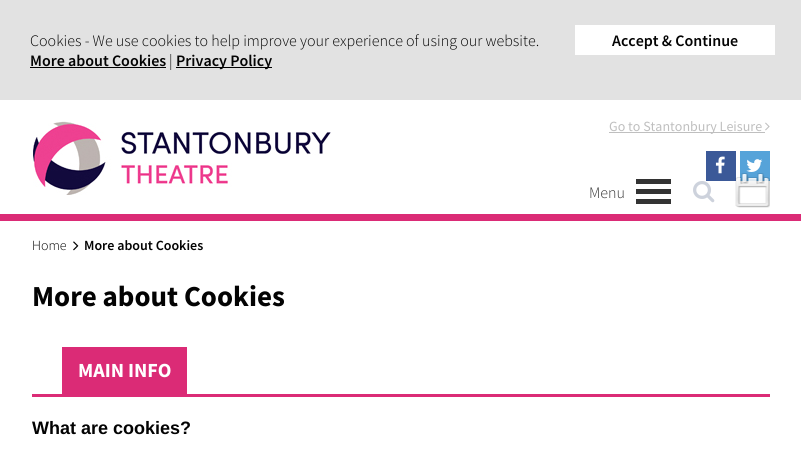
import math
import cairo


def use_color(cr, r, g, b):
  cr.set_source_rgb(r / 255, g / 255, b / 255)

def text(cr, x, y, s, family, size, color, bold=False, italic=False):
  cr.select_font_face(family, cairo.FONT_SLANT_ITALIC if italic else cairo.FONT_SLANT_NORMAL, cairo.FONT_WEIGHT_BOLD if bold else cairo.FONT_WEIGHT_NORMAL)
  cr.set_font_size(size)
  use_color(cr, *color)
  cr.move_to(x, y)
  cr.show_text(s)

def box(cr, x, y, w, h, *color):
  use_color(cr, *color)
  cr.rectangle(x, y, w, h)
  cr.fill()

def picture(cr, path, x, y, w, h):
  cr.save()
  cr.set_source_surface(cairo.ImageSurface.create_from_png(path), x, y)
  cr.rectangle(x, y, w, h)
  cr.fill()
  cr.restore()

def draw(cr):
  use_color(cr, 255, 255, 255)
  cr.paint()
  box(cr, 0, 0, 801, 100, 226, 226, 226)
  box(cr, 30, 67, 136, 1, 0, 0, 0)
  box(cr, 176, 67, 96, 1, 0, 0, 0)
  box(cr, 575, 25, 200, 30, 255, 255, 255)
  box(cr, 0, 214, 801, 7, 219, 43, 118)
  picture(cr, "img_01.png", 33, 121, 298, 74)
  box(cr, 609, 132, 156, 1, 191, 191, 191)
  picture(cr, "img_02.png", 765, 122, 5, 9)
  box(cr, 706, 151, 30, 30, 59, 89, 152)
  picture(cr, "img_03.png", 715, 156, 10, 18)
  box(cr, 740, 151, 30, 30, 86, 163, 217)
  picture(cr, "img_04.png", 746, 159, 17, 13)
  box(cr, 636, 179, 35, 5, 51, 51, 51)
  box(cr, 636, 189, 35, 5, 51, 51, 51)
  box(cr, 636, 199, 35, 5, 51, 51, 51)
  picture(cr, "img_05.png", 693, 181, 22, 22)
  picture(cr, "img_06.png", 735, 173, 35, 35)
  picture(cr, "img_07.png", 73, 241, 6, 10)
  box(cr, 32, 394, 738, 3, 219, 43, 118)
  box(cr, 62, 347, 125, 47, 219, 43, 118)
  text(cr, 30, 46, "Cookies - We use cookies to help improve your experience of using our website.", "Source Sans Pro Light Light", 16, (3, 3, 3))
  text(cr, 30, 66, "More about Cookies", "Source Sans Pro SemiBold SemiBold", 16, (3, 3, 3))
  text(cr, 169, 66, "|", "Source Sans Pro Light Light", 16, (3, 3, 3))
  text(cr, 176, 66, "Privacy Policy", "Source Sans Pro SemiBold SemiBold", 16, (3, 3, 3))
  text(cr, 612, 46, "Accept & Continue", "Source Sans Pro SemiBold SemiBold", 16, (3, 3, 3))
  text(cr, 609, 131, "Go to Stantonbury Leisure", "Source Sans Pro", 14, (191, 191, 191))
  text(cr, 589, 198, "Menu", "Source Sans Pro Light Light", 16, (51, 51, 51))
  text(cr, 32, 250, "Home", "Source Sans Pro Light Light", 14, (3, 3, 3))
  text(cr, 84, 250, "More about Cookies", "Source Sans Pro SemiBold SemiBold", 14, (3, 3, 3))
  text(cr, 32, 306, "More about Cookies", "Source Sans Pro", 29, (3, 3, 3), bold=True)
  text(cr, 78, 377, "MAIN INFO", "Source Sans Pro", 20, (255, 255, 255), bold=True)
  text(cr, 32, 434, "What are cookies?", "Liberation Sans", 18, (3, 3, 3), bold=True)


surface = cairo.ImageSurface(cairo.FORMAT_RGB24, 801, 452)
cr = cairo.Context(surface)
options = cairo.FontOptions()
options.set_hint_metrics(cairo.HINT_METRICS_OFF)
options.set_hint_style(cairo.HINT_STYLE_NONE)
cr.set_font_options(options)
cr.set_miter_limit(4)
draw(cr)
surface.write_to_png("out.png")
